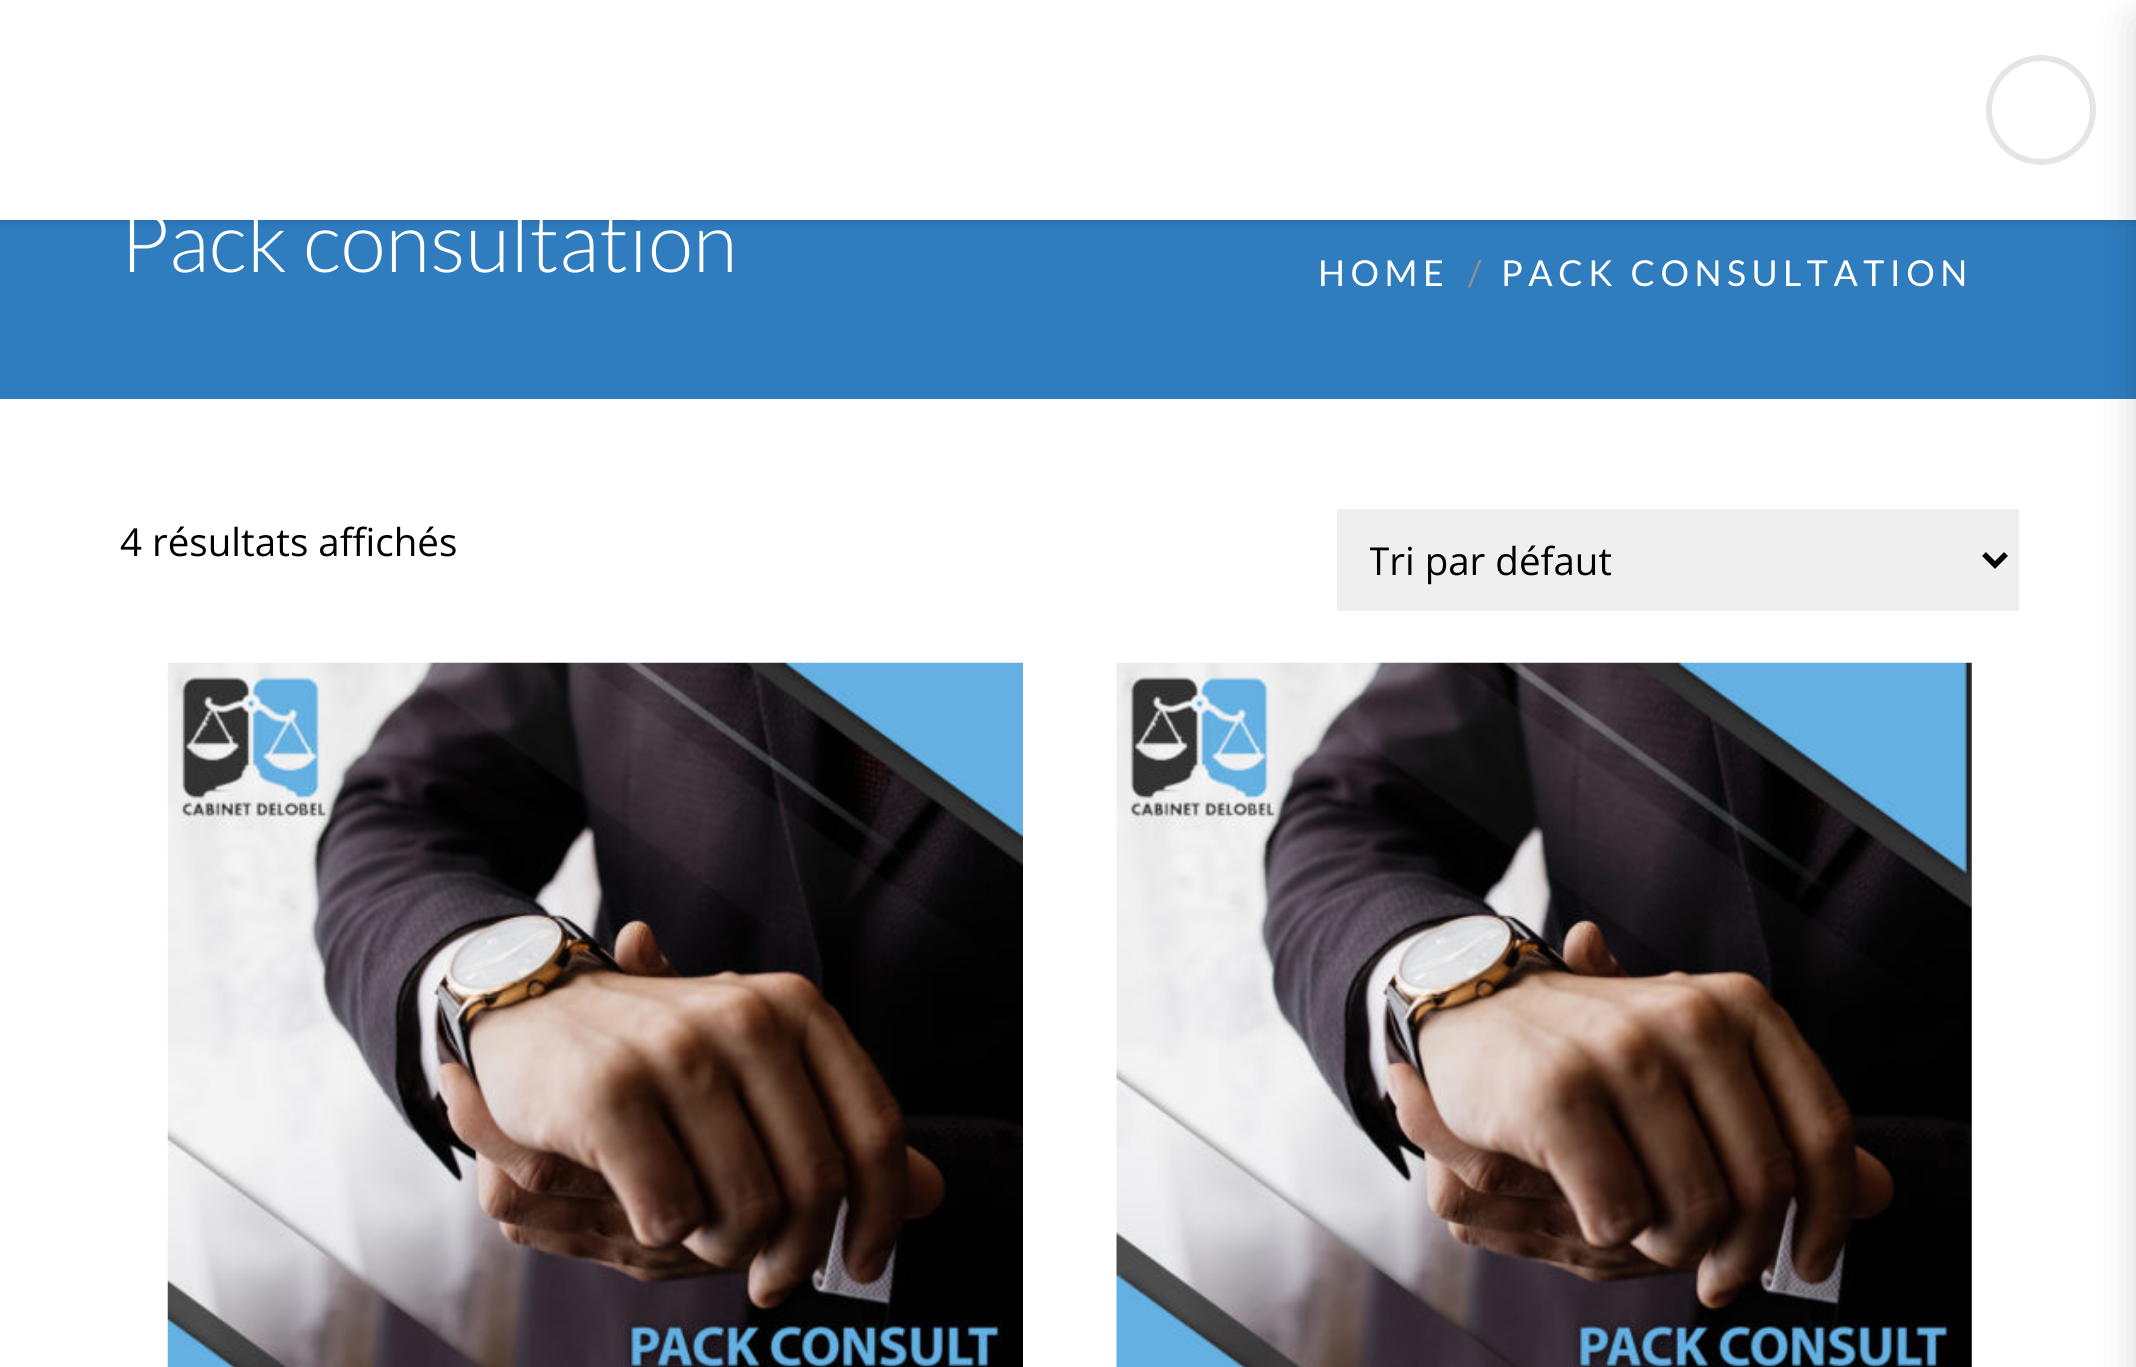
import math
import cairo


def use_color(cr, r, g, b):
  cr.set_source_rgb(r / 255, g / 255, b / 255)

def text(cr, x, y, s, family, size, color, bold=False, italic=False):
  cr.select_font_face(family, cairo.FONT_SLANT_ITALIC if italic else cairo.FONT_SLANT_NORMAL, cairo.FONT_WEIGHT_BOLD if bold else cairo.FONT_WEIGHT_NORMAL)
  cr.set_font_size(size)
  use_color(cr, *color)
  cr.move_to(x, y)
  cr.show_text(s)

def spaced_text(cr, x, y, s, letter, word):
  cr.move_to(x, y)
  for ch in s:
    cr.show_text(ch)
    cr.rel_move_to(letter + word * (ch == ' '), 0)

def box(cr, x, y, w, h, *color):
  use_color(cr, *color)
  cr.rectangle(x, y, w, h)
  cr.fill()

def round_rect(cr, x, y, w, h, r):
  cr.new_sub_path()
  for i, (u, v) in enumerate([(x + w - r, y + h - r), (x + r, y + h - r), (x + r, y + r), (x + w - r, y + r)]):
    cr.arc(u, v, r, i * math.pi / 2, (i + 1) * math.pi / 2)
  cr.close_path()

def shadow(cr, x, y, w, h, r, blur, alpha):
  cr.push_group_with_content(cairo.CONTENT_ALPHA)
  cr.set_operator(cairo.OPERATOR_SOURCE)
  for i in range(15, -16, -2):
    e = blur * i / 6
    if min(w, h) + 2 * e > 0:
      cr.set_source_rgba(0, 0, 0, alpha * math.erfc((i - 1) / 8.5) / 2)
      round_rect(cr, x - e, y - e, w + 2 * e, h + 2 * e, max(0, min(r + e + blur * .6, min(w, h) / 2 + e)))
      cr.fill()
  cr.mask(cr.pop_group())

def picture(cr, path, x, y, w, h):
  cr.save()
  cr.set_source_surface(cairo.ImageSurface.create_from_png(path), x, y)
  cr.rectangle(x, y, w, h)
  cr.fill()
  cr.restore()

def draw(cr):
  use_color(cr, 255, 255, 255)
  cr.paint()
  box(cr, 0, 220, 2136, 179, 47, 124, 191)
  use_color(cr, 0, 0, 0)
  shadow(cr, 0, 3, 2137, 220, 0, 4, 0.11)
  box(cr, 0, 0, 2136, 220, 255, 255, 255)
  cr.arc(2041, 110, 52, 0, 2 * math.pi)
  use_color(cr, 229, 229, 229)
  cr.set_line_width(6)
  cr.stroke()
  box(cr, 1337, 509, 682, 102, 239, 239, 239)
  cr.new_path()
  cr.move_to(1984, 554)
  cr.line_to(1995, 565)
  cr.line_to(2006, 554)
  use_color(cr, 0, 0, 0)
  cr.set_line_width(5.5)
  cr.stroke()
  picture(cr, "img_01.png", 167, 662, 856, 705)
  picture(cr, "img_02.png", 1116, 662, 856, 705)
  use_color(cr, 0, 0, 0)
  shadow(cr, 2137, 22, 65, 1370, 0, 22, 0.15)
  text(cr, 120, 272, "Pack consultation", "Lato Light", 82.5, (255, 255, 255))
  cr.select_font_face("Lato")
  cr.set_font_size(35.75)
  spaced_text(cr, 1318, 286, "HOME", 5.5, 0)
  use_color(cr, 143, 143, 143)
  spaced_text(cr, 1468, 286, "/", 5.5, 0)
  use_color(cr, 255, 255, 255)
  spaced_text(cr, 1501, 286, "PACK CONSULTATION", 5.5, 0)
  text(cr, 120, 556, "4 résultats affichés", "Open Sans", 38.5, (0, 0, 0))
  cr.save()
  cr.rectangle(1370, 531, 583, 58)
  cr.clip()
  text(cr, 1368, 575, "Tri par défaut", "Open Sans", 38.5, (0, 0, 0))
  cr.restore()


surface = cairo.ImageSurface(cairo.FORMAT_RGB24, 2136, 1367)
cr = cairo.Context(surface)
options = cairo.FontOptions()
options.set_hint_metrics(cairo.HINT_METRICS_OFF)
options.set_hint_style(cairo.HINT_STYLE_NONE)
cr.set_font_options(options)
cr.set_miter_limit(4)
draw(cr)
surface.write_to_png("out.png")
